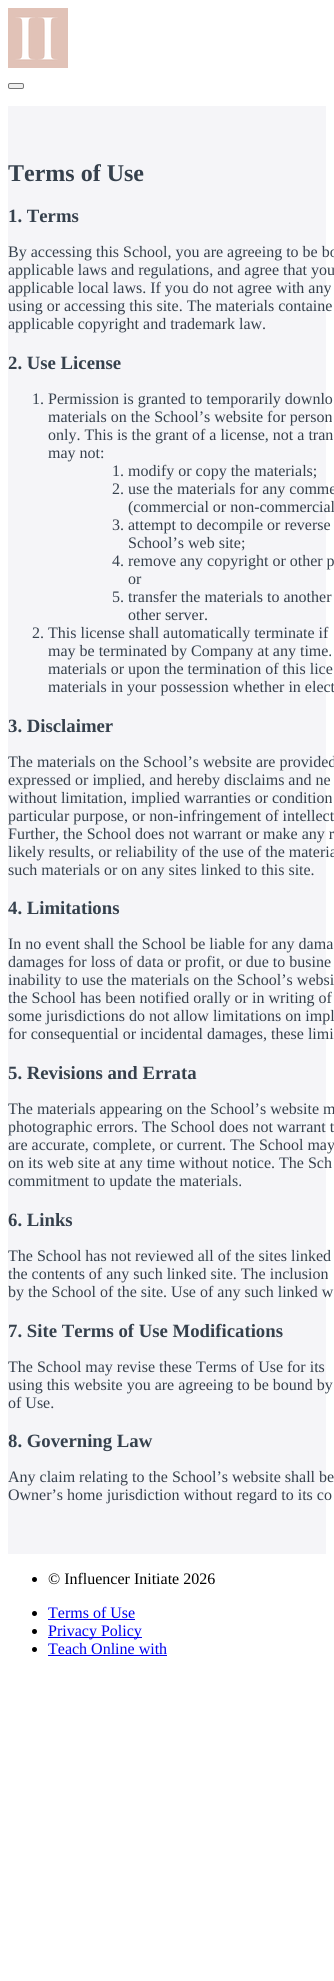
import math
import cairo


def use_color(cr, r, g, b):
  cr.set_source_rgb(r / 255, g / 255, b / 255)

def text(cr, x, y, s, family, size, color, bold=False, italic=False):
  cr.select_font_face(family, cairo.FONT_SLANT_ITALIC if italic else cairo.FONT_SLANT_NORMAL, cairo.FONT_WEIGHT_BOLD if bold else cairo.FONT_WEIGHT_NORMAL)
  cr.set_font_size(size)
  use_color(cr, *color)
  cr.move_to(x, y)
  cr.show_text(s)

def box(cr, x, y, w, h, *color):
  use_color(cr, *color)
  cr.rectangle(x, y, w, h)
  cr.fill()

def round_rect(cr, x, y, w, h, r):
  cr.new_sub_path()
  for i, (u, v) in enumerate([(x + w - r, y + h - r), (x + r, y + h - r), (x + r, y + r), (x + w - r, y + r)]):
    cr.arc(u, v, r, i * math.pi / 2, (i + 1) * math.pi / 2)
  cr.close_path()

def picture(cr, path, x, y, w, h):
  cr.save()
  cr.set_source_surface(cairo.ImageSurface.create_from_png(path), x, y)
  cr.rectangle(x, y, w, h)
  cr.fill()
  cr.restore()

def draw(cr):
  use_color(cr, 255, 255, 255)
  cr.paint()
  picture(cr, "img_01.png", 8, 8, 60, 60)
  use_color(cr, 239, 239, 239)
  round_rect(cr, 8.5, 83.5, 15, 5, 1.5)
  cr.fill_preserve()
  use_color(cr, 118, 118, 118)
  cr.set_line_width(1)
  cr.stroke()
  box(cr, 8, 106, 318, 1448, 245, 245, 248)
  use_color(cr, 0, 0, 0)
  cr.arc(34.5, 1579.5, 2.5, 0, 2 * math.pi)
  cr.fill()
  cr.arc(34.5, 1613.5, 2.5, 0, 2 * math.pi)
  cr.fill()
  box(cr, 48, 1619, 87, 1, 0, 0, 238)
  use_color(cr, 0, 0, 0)
  cr.arc(34.5, 1631.5, 2.5, 0, 2 * math.pi)
  cr.fill()
  box(cr, 48, 1637, 94, 1, 0, 0, 238)
  use_color(cr, 0, 0, 0)
  cr.arc(34.5, 1649.5, 2.5, 0, 2 * math.pi)
  cr.fill()
  box(cr, 48, 1655, 119, 1, 0, 0, 238)
  text(cr, 8, 181, "Terms of Use", "Liberation Serif", 24, (54, 65, 77), bold=True)
  text(cr, 8, 222, "1. Terms", "Liberation Serif", 18.75, (54, 65, 77), bold=True)
  text(cr, 8, 257, "By accessing this School, you are agreeing to be bo", "Liberation Serif", 16, (54, 65, 77))
  text(cr, 8, 275, "applicable laws and regulations, and agree that you", "Liberation Serif", 16, (54, 65, 77))
  text(cr, 8, 293, "applicable local laws. If you do not agree with any", "Liberation Serif", 16, (54, 65, 77))
  text(cr, 8, 311, "using or accessing this site. The materials containe", "Liberation Serif", 16, (54, 65, 77))
  text(cr, 8, 329, "applicable copyright and trademark law.", "Liberation Serif", 16, (54, 65, 77))
  text(cr, 8, 369, "2. Use License", "Liberation Serif", 18.75, (54, 65, 77), bold=True)
  text(cr, 32, 404, "1. Permission is granted to temporarily downlo", "Liberation Serif", 16, (54, 65, 77))
  text(cr, 48, 422, "materials on the School’s website for person", "Liberation Serif", 16, (54, 65, 77))
  text(cr, 48, 440, "only. This is the grant of a license, not a tran", "Liberation Serif", 16, (54, 65, 77))
  text(cr, 48, 458, "may not:", "Liberation Serif", 16, (54, 65, 77))
  text(cr, 112, 476, "1. modify or copy the materials;", "Liberation Serif", 16, (54, 65, 77))
  text(cr, 112, 494, "2. use the materials for any comme", "Liberation Serif", 16, (54, 65, 77))
  text(cr, 128, 512, "(commercial or non-commercial", "Liberation Serif", 16, (54, 65, 77))
  text(cr, 112, 530, "3. attempt to decompile or reverse", "Liberation Serif", 16, (54, 65, 77))
  text(cr, 128, 548, "School’s web site;", "Liberation Serif", 16, (54, 65, 77))
  text(cr, 112, 566, "4. remove any copyright or other p", "Liberation Serif", 16, (54, 65, 77))
  text(cr, 128, 584, "or", "Liberation Serif", 16, (54, 65, 77))
  text(cr, 112, 602, "5. transfer the materials to another", "Liberation Serif", 16, (54, 65, 77))
  text(cr, 128, 620, "other server.", "Liberation Serif", 16, (54, 65, 77))
  text(cr, 32, 638, "2. This license shall automatically terminate if", "Liberation Serif", 16, (54, 65, 77))
  text(cr, 48, 656, "may be terminated by Company at any time.", "Liberation Serif", 16, (54, 65, 77))
  text(cr, 48, 674, "materials or upon the termination of this lice", "Liberation Serif", 16, (54, 65, 77))
  text(cr, 48, 692, "materials in your possession whether in elect", "Liberation Serif", 16, (54, 65, 77))
  text(cr, 8, 732, "3. Disclaimer", "Liberation Serif", 18.75, (54, 65, 77), bold=True)
  text(cr, 8, 767, "The materials on the School’s website are provided", "Liberation Serif", 16, (54, 65, 77))
  text(cr, 8, 785, "expressed or implied, and hereby disclaims and ne", "Liberation Serif", 16, (54, 65, 77))
  text(cr, 8, 803, "without limitation, implied warranties or condition", "Liberation Serif", 16, (54, 65, 77))
  text(cr, 8, 821, "particular purpose, or non-infringement of intellect", "Liberation Serif", 16, (54, 65, 77))
  text(cr, 8, 839, "Further, the School does not warrant or make any r", "Liberation Serif", 16, (54, 65, 77))
  text(cr, 8, 857, "likely results, or reliability of the use of the materia", "Liberation Serif", 16, (54, 65, 77))
  text(cr, 8, 875, "such materials or on any sites linked to this site.", "Liberation Serif", 16, (54, 65, 77))
  text(cr, 8, 914, "4. Limitations", "Liberation Serif", 18.75, (54, 65, 77), bold=True)
  text(cr, 8, 949, "In no event shall the School be liable for any dama", "Liberation Serif", 16, (54, 65, 77))
  text(cr, 8, 967, "damages for loss of data or profit, or due to busine", "Liberation Serif", 16, (54, 65, 77))
  text(cr, 8, 985, "inability to use the materials on the School’s websi", "Liberation Serif", 16, (54, 65, 77))
  text(cr, 8, 1003, "the School has been notified orally or in writing of", "Liberation Serif", 16, (54, 65, 77))
  text(cr, 8, 1021, "some jurisdictions do not allow limitations on impl", "Liberation Serif", 16, (54, 65, 77))
  text(cr, 8, 1039, "for consequential or incidental damages, these limi", "Liberation Serif", 16, (54, 65, 77))
  text(cr, 8, 1079, "5. Revisions and Errata", "Liberation Serif", 18.75, (54, 65, 77), bold=True)
  text(cr, 8, 1114, "The materials appearing on the School’s website m", "Liberation Serif", 16, (54, 65, 77))
  text(cr, 8, 1132, "photographic errors. The School does not warrant t", "Liberation Serif", 16, (54, 65, 77))
  text(cr, 8, 1150, "are accurate, complete, or current. The School may", "Liberation Serif", 16, (54, 65, 77))
  text(cr, 8, 1168, "on its web site at any time without notice. The Sch", "Liberation Serif", 16, (54, 65, 77))
  text(cr, 8, 1186, "commitment to update the materials.", "Liberation Serif", 16, (54, 65, 77))
  text(cr, 8, 1226, "6. Links", "Liberation Serif", 18.75, (54, 65, 77), bold=True)
  text(cr, 8, 1261, "The School has not reviewed all of the sites linked", "Liberation Serif", 16, (54, 65, 77))
  text(cr, 8, 1279, "the contents of any such linked site. The inclusion", "Liberation Serif", 16, (54, 65, 77))
  text(cr, 8, 1297, "by the School of the site. Use of any such linked w", "Liberation Serif", 16, (54, 65, 77))
  text(cr, 8, 1337, "7. Site Terms of Use Modifications", "Liberation Serif", 18.75, (54, 65, 77), bold=True)
  text(cr, 8, 1372, "The School may revise these Terms of Use for its", "Liberation Serif", 16, (54, 65, 77))
  text(cr, 8, 1390, "using this website you are agreeing to be bound by", "Liberation Serif", 16, (54, 65, 77))
  text(cr, 8, 1408, "of Use.", "Liberation Serif", 16, (54, 65, 77))
  text(cr, 8, 1447, "8. Governing Law", "Liberation Serif", 18.75, (54, 65, 77), bold=True)
  text(cr, 8, 1482, "Any claim relating to the School’s website shall be", "Liberation Serif", 16, (54, 65, 77))
  text(cr, 8, 1500, "Owner’s home jurisdiction without regard to its co", "Liberation Serif", 16, (54, 65, 77))
  text(cr, 48, 1584, "© Influencer Initiate 2026", "Liberation Serif", 16, (0, 0, 0))
  text(cr, 48, 1618, "Terms of Use", "Liberation Serif", 16, (0, 0, 238))
  text(cr, 48, 1636, "Privacy Policy", "Liberation Serif", 16, (0, 0, 238))
  text(cr, 48, 1654, "Teach Online with", "Liberation Serif", 16, (0, 0, 238))


surface = cairo.ImageSurface(cairo.FORMAT_RGB24, 334, 1981)
cr = cairo.Context(surface)
options = cairo.FontOptions()
options.set_hint_metrics(cairo.HINT_METRICS_OFF)
options.set_hint_style(cairo.HINT_STYLE_NONE)
cr.set_font_options(options)
cr.set_miter_limit(4)
draw(cr)
surface.write_to_png("out.png")
